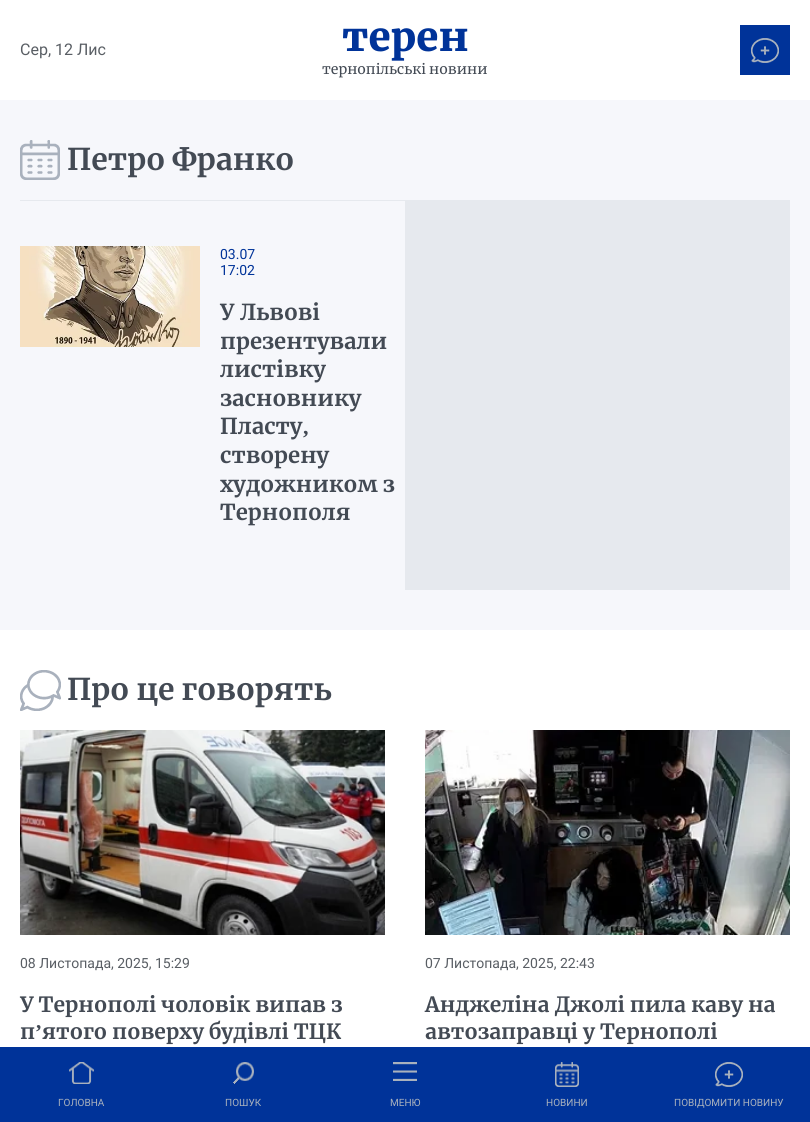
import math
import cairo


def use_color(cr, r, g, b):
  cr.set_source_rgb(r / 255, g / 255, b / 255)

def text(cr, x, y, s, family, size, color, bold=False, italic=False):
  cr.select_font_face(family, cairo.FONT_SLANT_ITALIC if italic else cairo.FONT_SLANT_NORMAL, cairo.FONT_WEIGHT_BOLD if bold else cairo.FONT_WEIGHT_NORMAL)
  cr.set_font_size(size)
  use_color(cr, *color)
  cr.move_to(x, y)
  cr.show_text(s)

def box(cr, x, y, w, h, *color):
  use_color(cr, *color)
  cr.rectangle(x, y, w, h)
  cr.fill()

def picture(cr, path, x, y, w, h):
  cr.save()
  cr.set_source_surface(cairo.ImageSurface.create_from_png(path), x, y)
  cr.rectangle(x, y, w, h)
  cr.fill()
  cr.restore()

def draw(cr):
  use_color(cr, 255, 255, 255)
  cr.paint()
  box(cr, 740, 25, 50, 50, 0, 51, 153)
  picture(cr, "img_01.png", 751, 38, 28, 25)
  box(cr, 0, 100, 810, 530, 246, 247, 251)
  picture(cr, "img_02.png", 20, 140, 40, 40)
  box(cr, 20, 200, 770, 390, 230, 233, 238)
  box(cr, 20, 201, 385, 389, 246, 247, 251)
  picture(cr, "img_03.png", 20, 246, 180, 101)
  picture(cr, "img_04.png", 20, 670, 41, 41)
  picture(cr, "img_05.png", 20, 730, 365, 205)
  picture(cr, "img_06.png", 425, 730, 365, 205)
  box(cr, 0, 1047, 810, 75, 0, 51, 153)
  picture(cr, "img_07.png", 69, 1062, 25, 22)
  picture(cr, "img_08.png", 233, 1062, 21, 22)
  picture(cr, "img_09.png", 393, 1062, 24, 19)
  picture(cr, "img_10.png", 555, 1062, 24, 25)
  picture(cr, "img_01.png", 715, 1062, 28, 25)
  text(cr, 20, 55, "Сер, 12 Лис", "Roboto", 16, (89, 94, 100))
  text(cr, 342, 51, "терен", "Merriweather Black", 40, (0, 51, 153))
  text(cr, 322, 74, "тернопільські новини", "Merriweather", 14, (67, 74, 84))
  text(cr, 67, 170, "Петро Франко", "Merriweather", 30, (67, 74, 84), bold=True)
  text(cr, 220, 259, "03.07", "Roboto", 14, (0, 51, 153))
  text(cr, 220, 275, "17:02", "Roboto", 14, (0, 51, 153))
  text(cr, 220, 320, "У Львові", "Merriweather", 22, (67, 74, 84), bold=True)
  text(cr, 220, 349, "презентували", "Merriweather", 22, (67, 74, 84), bold=True)
  text(cr, 220, 377, "листівку", "Merriweather", 22, (67, 74, 84), bold=True)
  text(cr, 220, 406, "засновнику", "Merriweather", 22, (67, 74, 84), bold=True)
  text(cr, 220, 434, "Пласту", "Merriweather", 22, (67, 74, 84), bold=True)
  text(cr, 303, 434, ",", "Liberation Serif", 22, (67, 74, 84), bold=True)
  text(cr, 220, 463, "створену", "Merriweather", 22, (67, 74, 84), bold=True)
  text(cr, 220, 492, "художником з", "Merriweather", 22, (67, 74, 84), bold=True)
  text(cr, 220, 520, "Тернополя", "Merriweather", 22, (67, 74, 84), bold=True)
  text(cr, 67, 700, "Про це говорять", "Merriweather", 30, (67, 74, 84), bold=True)
  text(cr, 20, 968, "08 Листопада, 2025, 15:29", "Roboto", 14, (89, 94, 100))
  text(cr, 20, 1012, "У Тернополі чоловік випав з", "Merriweather", 21, (67, 74, 84), bold=True)
  text(cr, 20, 1039, "п", "Merriweather", 21, (67, 74, 84), bold=True)
  text(cr, 35, 1039, "’", "Liberation Serif", 21, (67, 74, 84), bold=True)
  text(cr, 42, 1039, "ятого поверху будівлі ТЦК", "Merriweather", 21, (67, 74, 84), bold=True)
  text(cr, 425, 968, "07 Листопада, 2025, 22:43", "Roboto", 14, (89, 94, 100))
  text(cr, 425, 1012, "Анджеліна Джолі пила каву на", "Merriweather", 21, (67, 74, 84), bold=True)
  text(cr, 425, 1039, "автозаправці у Тернополі", "Merriweather", 21, (67, 74, 84), bold=True)
  text(cr, 58, 1106, "ГОЛОВНА", "Roboto", 10, (170, 178, 189))
  text(cr, 225, 1106, "ПОШУК", "Roboto", 10, (170, 178, 189))
  text(cr, 390, 1106, "МЕНЮ", "Roboto", 10, (170, 178, 189))
  text(cr, 546, 1106, "НОВИНИ", "Roboto", 10, (170, 178, 189))
  text(cr, 674, 1106, "ПОВІДОМИТИ НОВИНУ", "Roboto", 10, (170, 178, 189))


surface = cairo.ImageSurface(cairo.FORMAT_RGB24, 810, 1122)
cr = cairo.Context(surface)
options = cairo.FontOptions()
options.set_hint_metrics(cairo.HINT_METRICS_OFF)
options.set_hint_style(cairo.HINT_STYLE_NONE)
cr.set_font_options(options)
cr.set_miter_limit(4)
draw(cr)
surface.write_to_png("out.png")
